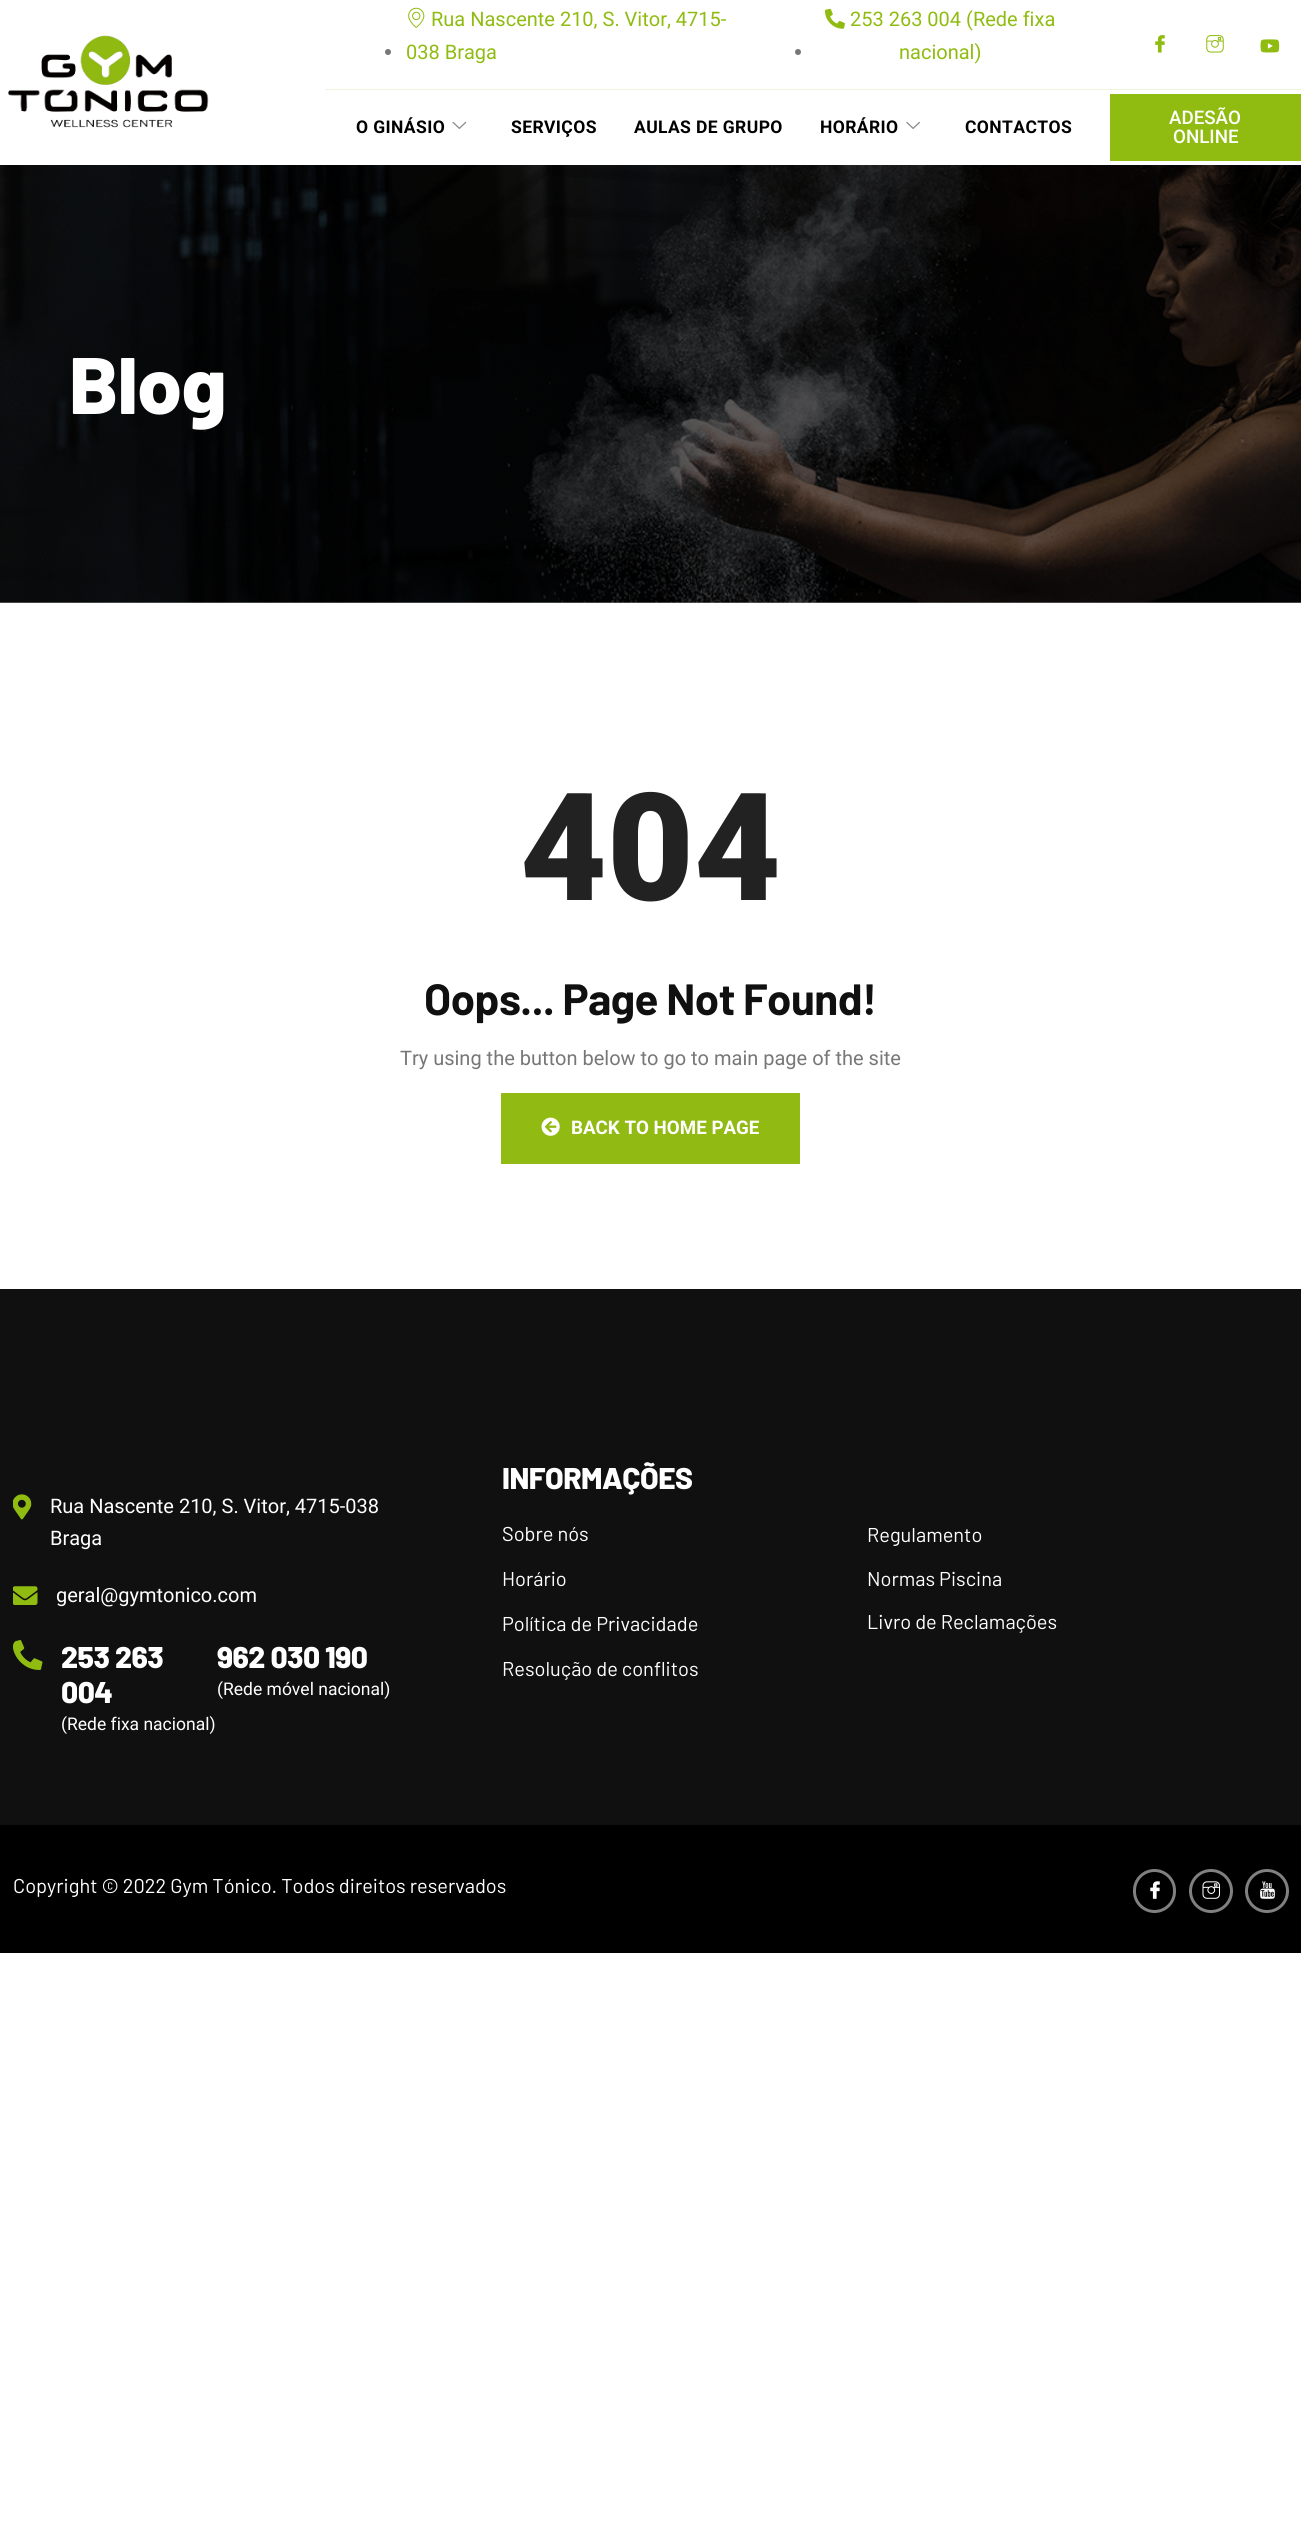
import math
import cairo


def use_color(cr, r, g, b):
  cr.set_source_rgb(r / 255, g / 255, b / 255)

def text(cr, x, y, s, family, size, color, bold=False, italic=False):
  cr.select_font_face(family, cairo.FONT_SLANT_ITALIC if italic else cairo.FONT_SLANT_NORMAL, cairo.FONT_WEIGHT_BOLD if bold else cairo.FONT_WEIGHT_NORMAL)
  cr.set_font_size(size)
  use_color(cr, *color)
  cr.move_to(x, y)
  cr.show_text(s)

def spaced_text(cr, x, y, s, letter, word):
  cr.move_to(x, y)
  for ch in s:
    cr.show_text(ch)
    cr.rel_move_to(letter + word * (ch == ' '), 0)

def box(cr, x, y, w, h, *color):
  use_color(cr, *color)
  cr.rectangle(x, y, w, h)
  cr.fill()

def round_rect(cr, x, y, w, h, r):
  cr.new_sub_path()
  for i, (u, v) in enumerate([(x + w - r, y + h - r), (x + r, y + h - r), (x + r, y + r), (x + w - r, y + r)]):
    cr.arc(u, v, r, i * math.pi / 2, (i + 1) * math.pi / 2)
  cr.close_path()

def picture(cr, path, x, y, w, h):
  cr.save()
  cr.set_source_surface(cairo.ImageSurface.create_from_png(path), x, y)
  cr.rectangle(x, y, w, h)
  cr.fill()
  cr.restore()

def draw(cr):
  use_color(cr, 255, 255, 255)
  cr.paint()
  box(cr, 0, 602, 1301, 1, 128, 128, 128)
  picture(cr, "img_01.png", 8, 35, 201, 93)
  box(cr, 325, 89, 976, 1, 239, 245, 220)
  use_color(cr, 119, 119, 119)
  cr.arc(388, 52, 3, 0, 2 * math.pi)
  cr.fill()
  picture(cr, "img_02.png", 408, 7, 17, 21)
  cr.arc(798, 52, 3, 0, 2 * math.pi)
  cr.fill()
  picture(cr, "img_03.png", 825, 8, 20, 21)
  picture(cr, "img_04.png", 1155, 35, 10, 18)
  picture(cr, "img_05.png", 1206, 35, 18, 18)
  picture(cr, "img_06.png", 1260, 39, 20, 14)
  picture(cr, "img_07.png", 452, 121, 15, 8)
  picture(cr, "img_08.png", 906, 121, 14, 8)
  box(cr, 1110, 94, 191, 67, 144, 188, 17)
  picture(cr, "img_09.png", 0, 165, 1301, 438)
  box(cr, 501, 1093, 299, 71, 145, 186, 19)
  picture(cr, "img_10.png", 541, 1117, 19, 19)
  box(cr, 0, 1289, 1301, 536, 16, 16, 16)
  picture(cr, "img_11.png", 13, 1494, 19, 26)
  picture(cr, "img_12.png", 13, 1586, 25, 19)
  picture(cr, "img_13.png", 13, 1640, 30, 30)
  box(cr, 0, 1825, 1301, 128, 0, 0, 0)
  round_rect(cr, 1134.5, 1870.5, 40, 41, 20)
  use_color(cr, 128, 128, 128)
  cr.set_line_width(3)
  cr.stroke()
  picture(cr, "img_14.png", 1150, 1881, 10, 18)
  cr.arc(1211, 1891, 20.5, 0, 2 * math.pi)
  cr.stroke()
  picture(cr, "img_15.png", 1202, 1881, 18, 18)
  cr.arc(1267, 1891, 20.5, 0, 2 * math.pi)
  cr.stroke()
  picture(cr, "img_16.png", 1260, 1881, 15, 18)
  text(cr, 431, 26, "Rua Nascente 210, S. Vitor, 4715-", "Roboto", 20, (144, 188, 17))
  text(cr, 406, 59, "038 Braga", "Roboto", 20, (144, 188, 17))
  text(cr, 850, 26, "253 263 004 (Rede fixa", "Roboto", 20, (144, 188, 17))
  text(cr, 899, 59, "nacional)", "Roboto", 20, (144, 188, 17))
  cr.select_font_face("Roboto", cairo.FONT_SLANT_NORMAL, cairo.FONT_WEIGHT_BOLD)
  cr.set_font_size(17.5)
  use_color(cr, 0, 0, 0)
  spaced_text(cr, 356, 133, "O GINÁSIO", 0.4, 0)
  spaced_text(cr, 511, 133, "SERVIÇOS", 0.4, 0)
  spaced_text(cr, 634, 133, "AULAS DE GRUPO", 0.4, 0)
  spaced_text(cr, 820, 133, "HORÁRIO", 0.4, 0)
  spaced_text(cr, 965, 133, "CONTACTOS", 0.4, 0)
  text(cr, 1169, 124, "ADESÃO", "Roboto Medium", 18.75, (255, 255, 255))
  text(cr, 1173, 143, "ONLINE", "Roboto Medium", 18.75, (255, 255, 255))
  cr.select_font_face("Barlow ExtraBold")
  cr.set_font_size(80)
  spaced_text(cr, 69, 414, "Blog", -0.5, 0)
  text(cr, 520, 900, "404", "Roboto Black", 150, (34, 34, 34))
  cr.select_font_face("Barlow", cairo.FONT_SLANT_NORMAL, cairo.FONT_WEIGHT_BOLD)
  cr.set_font_size(43.75)
  use_color(cr, 16, 16, 16)
  spaced_text(cr, 424, 1015, "Oops... Page Not Found!", -0.5, 0)
  text(cr, 400, 1065, "Try using the button below to go to main page of the site", "Roboto", 20, (119, 119, 119))
  text(cr, 571, 1134, "BACK TO HOME PAGE", "Roboto", 18.75, (255, 255, 255), bold=True)
  text(cr, 50, 1513, "Rua Nascente 210, S. Vitor, 4715-038", "Roboto", 20, (255, 255, 255))
  text(cr, 50, 1545, "Braga", "Roboto", 20, (255, 255, 255))
  text(cr, 56, 1602, "geral@gymtonico.com", "Roboto", 20, (255, 255, 255))
  cr.select_font_face("Barlow ExtraBold")
  cr.set_font_size(30)
  spaced_text(cr, 61, 1668, "253 263", -0.5, 0)
  spaced_text(cr, 61, 1703, "004", -0.5, 0)
  text(cr, 61, 1730, "(Rede fixa nacional)", "Roboto", 17.5, (255, 255, 255))
  cr.select_font_face("Barlow ExtraBold")
  cr.set_font_size(30)
  spaced_text(cr, 217, 1668, "962 030 190", -0.5, 0)
  text(cr, 217, 1695, "(Rede móvel nacional)", "Roboto", 17.5, (255, 255, 255))
  cr.select_font_face("Barlow ExtraBold")
  cr.set_font_size(30)
  spaced_text(cr, 502, 1489, "INFORMAÇÕES", -0.5, 0)
  text(cr, 502, 1541, "Sobre nós", "Barlow", 20, (255, 255, 255))
  text(cr, 502, 1586, "Horário", "Barlow", 20, (255, 255, 255))
  text(cr, 502, 1631, "Política de Privacidade", "Barlow", 20, (255, 255, 255))
  text(cr, 502, 1676, "Resolução de conflitos", "Barlow", 20, (255, 255, 255))
  text(cr, 867, 1542, "Regulamento", "Barlow", 20, (255, 255, 255))
  text(cr, 867, 1586, "Normas Piscina", "Barlow", 20, (255, 255, 255))
  text(cr, 867, 1629, "Livro de Reclamações", "Barlow", 20, (255, 255, 255))
  text(cr, 13, 1893, "Copyright © 2022 Gym Tónico. Todos direitos reservados", "Barlow", 20, (255, 255, 255))


surface = cairo.ImageSurface(cairo.FORMAT_RGB24, 1301, 2532)
cr = cairo.Context(surface)
options = cairo.FontOptions()
options.set_hint_metrics(cairo.HINT_METRICS_OFF)
options.set_hint_style(cairo.HINT_STYLE_NONE)
cr.set_font_options(options)
cr.set_miter_limit(4)
draw(cr)
surface.write_to_png("out.png")
